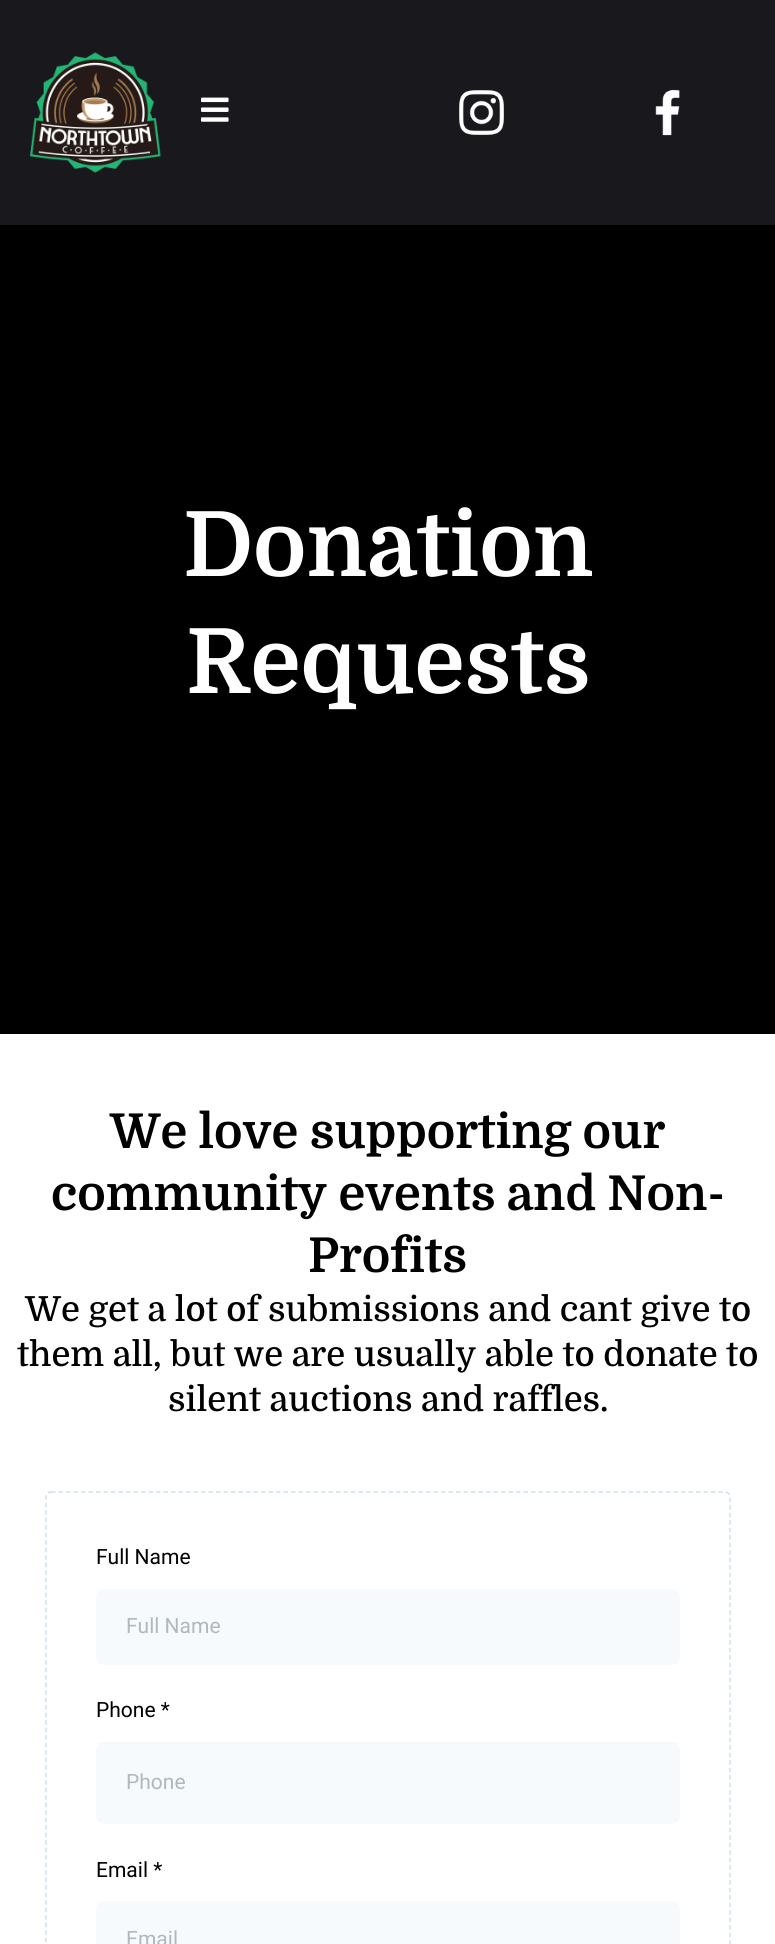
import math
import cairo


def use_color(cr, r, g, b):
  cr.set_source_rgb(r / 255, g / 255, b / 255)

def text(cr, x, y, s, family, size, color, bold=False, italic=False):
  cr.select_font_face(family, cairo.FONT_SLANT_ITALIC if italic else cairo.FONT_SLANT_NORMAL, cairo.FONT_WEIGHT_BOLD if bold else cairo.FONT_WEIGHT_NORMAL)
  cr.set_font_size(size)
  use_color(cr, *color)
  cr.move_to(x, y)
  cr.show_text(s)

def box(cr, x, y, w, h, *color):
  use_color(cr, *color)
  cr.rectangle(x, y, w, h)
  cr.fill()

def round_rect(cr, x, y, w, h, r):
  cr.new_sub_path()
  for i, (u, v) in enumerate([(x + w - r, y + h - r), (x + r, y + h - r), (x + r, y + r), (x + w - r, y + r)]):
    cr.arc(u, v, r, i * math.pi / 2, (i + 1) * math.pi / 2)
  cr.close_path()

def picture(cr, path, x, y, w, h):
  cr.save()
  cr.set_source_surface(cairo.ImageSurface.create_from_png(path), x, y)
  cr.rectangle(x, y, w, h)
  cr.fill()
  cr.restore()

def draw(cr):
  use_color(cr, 255, 255, 255)
  cr.paint()
  box(cr, 0, 0, 775, 225, 24, 24, 29)
  picture(cr, "img_01.png", 30, 52, 131, 121)
  picture(cr, "img_02.png", 201, 97, 28, 25)
  picture(cr, "img_03.png", 459, 90, 45, 45)
  picture(cr, "img_04.png", 655, 89, 25, 47)
  box(cr, 0, 225, 775, 809, 0, 0, 0)
  cr.new_path()
  cr.move_to(51, 1492)
  cr.line_to(724.5, 1492)
  cr.curve_to(727.5, 1492, 730, 1494, 730, 1497)
  cr.line_to(730, 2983.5)
  cr.curve_to(730, 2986.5, 727.5, 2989, 724.5, 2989)
  cr.line_to(51, 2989)
  cr.curve_to(48, 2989, 46, 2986.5, 46, 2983.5)
  cr.line_to(46, 1497)
  cr.curve_to(46, 1494, 48, 1492, 51, 1492)
  cr.close_path()
  use_color(cr, 205, 224, 236)
  cr.set_line_width(1.5)
  cr.set_dash([4.5, 3])
  cr.stroke()
  use_color(cr, 247, 250, 252)
  round_rect(cr, 96, 1589, 584, 76, 8)
  cr.fill()
  round_rect(cr, 96, 1742, 584, 82, 8)
  cr.fill()
  round_rect(cr, 96, 1901, 584, 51, 8)
  cr.fill()
  text(cr, 183, 576, "Donation", "Domine", 90, (255, 255, 255), bold=True)
  text(cr, 186, 693, "Requests", "Domine", 90, (255, 255, 255), bold=True)
  text(cr, 110, 1148, "We love supporting our", "Domine", 48, (0, 0, 0), bold=True)
  text(cr, 51, 1210, "community events and Non-", "Domine", 48, (0, 0, 0), bold=True)
  text(cr, 308, 1272, "Profits", "Domine", 48, (0, 0, 0), bold=True)
  text(cr, 25, 1321, "We get a lot of submissions and cant give to", "Domine Medium", 34.5, (0, 0, 0))
  text(cr, 17, 1366, "them all, but we are usually able to donate to", "Domine Medium", 34.5, (0, 0, 0))
  text(cr, 168, 1411, "silent auctions and raffles.", "Domine Medium", 34.5, (0, 0, 0))
  text(cr, 96, 1564, "Full Name", "Roboto", 21, (0, 0, 0))
  text(cr, 126, 1633, "Full Name", "Roboto", 21, (175, 184, 188))
  text(cr, 96, 1717, "Phone *", "Roboto", 21, (0, 0, 0))
  text(cr, 126, 1789, "Phone", "Roboto", 21, (175, 184, 188))
  text(cr, 96, 1877, "Email *", "Roboto", 21, (0, 0, 0))
  text(cr, 126, 1946, "Email", "Roboto", 21, (175, 184, 188))


surface = cairo.ImageSurface(cairo.FORMAT_RGB24, 775, 1944)
cr = cairo.Context(surface)
options = cairo.FontOptions()
options.set_hint_metrics(cairo.HINT_METRICS_OFF)
options.set_hint_style(cairo.HINT_STYLE_NONE)
cr.set_font_options(options)
cr.set_miter_limit(4)
draw(cr)
surface.write_to_png("out.png")
